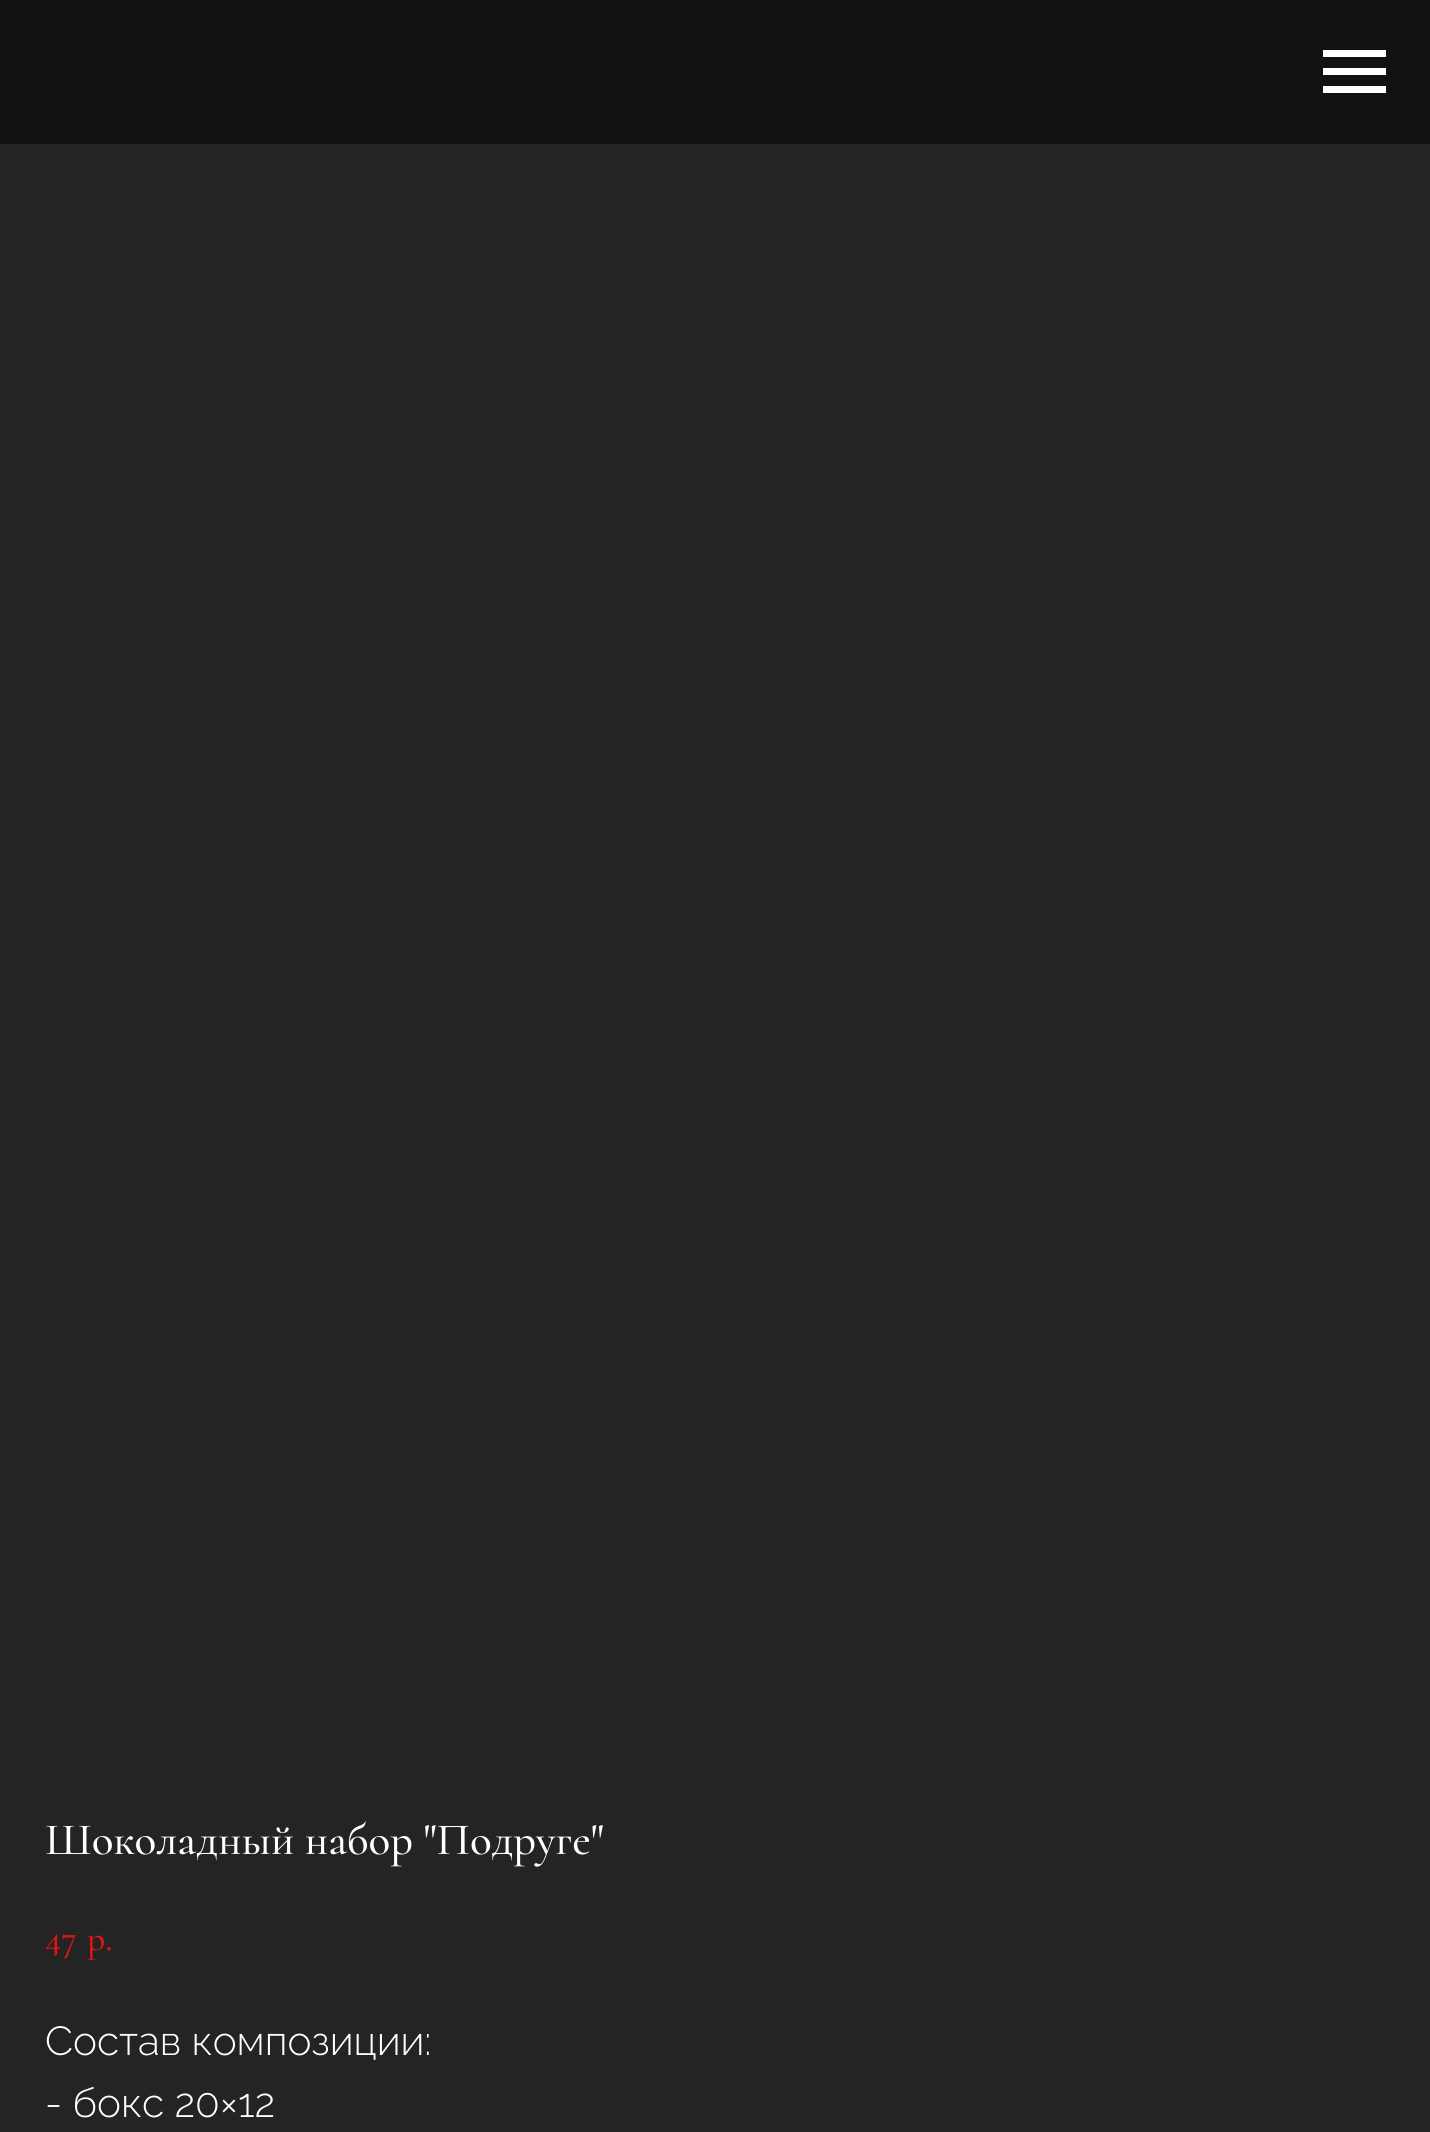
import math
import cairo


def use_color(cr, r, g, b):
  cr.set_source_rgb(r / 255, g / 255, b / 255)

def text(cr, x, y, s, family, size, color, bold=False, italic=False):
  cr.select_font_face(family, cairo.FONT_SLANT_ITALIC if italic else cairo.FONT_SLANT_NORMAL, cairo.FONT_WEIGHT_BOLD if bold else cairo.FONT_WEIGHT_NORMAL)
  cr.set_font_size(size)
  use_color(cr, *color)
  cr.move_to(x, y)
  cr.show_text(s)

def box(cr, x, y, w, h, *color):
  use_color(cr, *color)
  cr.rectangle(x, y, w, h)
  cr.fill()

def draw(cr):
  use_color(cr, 36, 36, 36)
  cr.paint()
  box(cr, 0, 0, 1430, 144, 17, 17, 17)
  box(cr, 1323, 50, 63, 7, 255, 255, 255)
  box(cr, 1323, 68, 63, 7, 255, 255, 255)
  box(cr, 1323, 86, 63, 7, 255, 255, 255)
  text(cr, 45, 1854, "Шоколадный набор \"Подруге\"", "Cormorant Medium", 45, (255, 255, 255))
  text(cr, 45, 1949, "47", "Cormorant Medium", 36, (227, 20, 20))
  text(cr, 87, 1950, "р.", "Cormorant Medium", 36, (227, 20, 20))
  text(cr, 45, 2055, "Состав композиции:", "Raleway Light", 40.5, (255, 255, 255))
  text(cr, 45, 2117, "- бокс 20×12", "Raleway Light", 40.5, (255, 255, 255))


surface = cairo.ImageSurface(cairo.FORMAT_RGB24, 1430, 2132)
cr = cairo.Context(surface)
options = cairo.FontOptions()
options.set_hint_metrics(cairo.HINT_METRICS_OFF)
options.set_hint_style(cairo.HINT_STYLE_NONE)
cr.set_font_options(options)
cr.set_miter_limit(4)
draw(cr)
surface.write_to_png("out.png")
